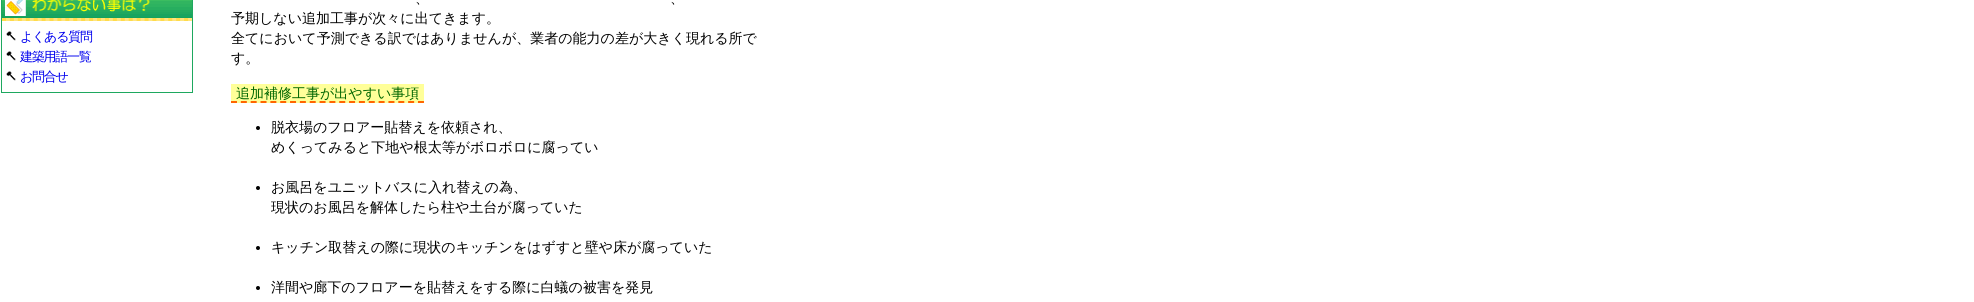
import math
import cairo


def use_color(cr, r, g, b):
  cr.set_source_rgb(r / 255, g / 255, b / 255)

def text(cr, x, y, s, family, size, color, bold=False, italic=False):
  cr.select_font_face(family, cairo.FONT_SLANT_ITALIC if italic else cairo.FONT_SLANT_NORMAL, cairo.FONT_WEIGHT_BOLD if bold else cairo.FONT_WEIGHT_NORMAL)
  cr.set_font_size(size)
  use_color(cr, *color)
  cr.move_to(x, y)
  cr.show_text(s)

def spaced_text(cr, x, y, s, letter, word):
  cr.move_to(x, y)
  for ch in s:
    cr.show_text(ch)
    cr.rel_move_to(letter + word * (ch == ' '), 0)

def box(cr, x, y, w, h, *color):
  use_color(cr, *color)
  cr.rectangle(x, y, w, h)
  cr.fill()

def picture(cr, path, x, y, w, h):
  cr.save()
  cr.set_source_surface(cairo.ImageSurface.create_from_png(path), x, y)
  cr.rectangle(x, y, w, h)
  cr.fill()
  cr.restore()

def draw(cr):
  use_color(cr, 255, 255, 255)
  cr.paint()
  box(cr, 192, 0, 1, 93, 30, 168, 95)
  box(cr, 1, 92, 192, 1, 30, 168, 95)
  box(cr, 1, 0, 1, 93, 30, 168, 95)
  picture(cr, "img_01.png", 2, 0, 190, 21)
  picture(cr, "img_02.png", 6, 31, 10, 10)
  picture(cr, "img_02.png", 6, 51, 10, 10)
  picture(cr, "img_02.png", 6, 71, 10, 10)
  box(cr, 231, 84, 193, 19, 255, 255, 153)
  cr.new_path()
  cr.move_to(231, 102)
  cr.line_to(424, 102)
  use_color(cr, 255, 102, 0)
  cr.set_dash([6, 3.84])
  cr.stroke()
  use_color(cr, 0, 0, 0)
  cr.arc(258, 128, 2, 0, 2 * math.pi)
  cr.fill()
  cr.arc(258, 188, 2, 0, 2 * math.pi)
  cr.fill()
  cr.arc(258, 248, 2, 0, 2 * math.pi)
  cr.fill()
  cr.arc(258, 288, 2, 0, 2 * math.pi)
  cr.fill()
  cr.select_font_face("WenQuanYi Zen Hei Medium")
  cr.set_font_size(13)
  use_color(cr, 0, 0, 238)
  spaced_text(cr, 20, 41, "よくある質問", -1.25, 0)
  spaced_text(cr, 20, 61, "建築用語一覧", -1.25, 0)
  spaced_text(cr, 20, 81, "お問合せ", -1.25, 0)
  text(cr, 415, 3, "、", "WenQuanYi Zen Hei Medium", 14, (0, 0, 0))
  text(cr, 670, 3, "、", "WenQuanYi Zen Hei Medium", 14, (0, 0, 0))
  text(cr, 231, 23, "予期しない追加工事が次々に出てきます。", "WenQuanYi Zen Hei Medium", 14, (0, 0, 0))
  text(cr, 231, 43, "全てにおいて予測できる訳ではありませんが、業者の能力の差が大きく現れる所で", "WenQuanYi Zen Hei Medium", 14, (0, 0, 0))
  text(cr, 231, 63, "す。", "WenQuanYi Zen Hei Medium", 14, (0, 0, 0))
  text(cr, 236, 98, "追加補修工事が出やすい事項", "WenQuanYi Zen Hei Medium", 14, (0, 102, 0))
  text(cr, 271, 132, "脱衣場のフロアー貼替えを依頼され、", "WenQuanYi Zen Hei Medium", 14, (0, 0, 0))
  text(cr, 271, 152, "めくってみると下地や根太等がボロボロに腐ってい", "WenQuanYi Zen Hei Medium", 14, (0, 0, 0))
  text(cr, 271, 192, "お風呂をユニットバスに入れ替えの為、", "WenQuanYi Zen Hei Medium", 14, (0, 0, 0))
  text(cr, 271, 212, "現状のお風呂を解体したら柱や土台が腐っていた", "WenQuanYi Zen Hei Medium", 14, (0, 0, 0))
  text(cr, 271, 252, "キッチン取替えの際に現状のキッチンをはずすと壁や床が腐っていた", "WenQuanYi Zen Hei Medium", 14, (0, 0, 0))
  text(cr, 271, 292, "洋間や廊下のフロアーを貼替えをする際に白蟻の被害を発見", "WenQuanYi Zen Hei Medium", 14, (0, 0, 0))


surface = cairo.ImageSurface(cairo.FORMAT_RGB24, 1974, 302)
cr = cairo.Context(surface)
options = cairo.FontOptions()
options.set_hint_metrics(cairo.HINT_METRICS_OFF)
options.set_hint_style(cairo.HINT_STYLE_NONE)
cr.set_font_options(options)
cr.set_miter_limit(4)
draw(cr)
surface.write_to_png("out.png")
